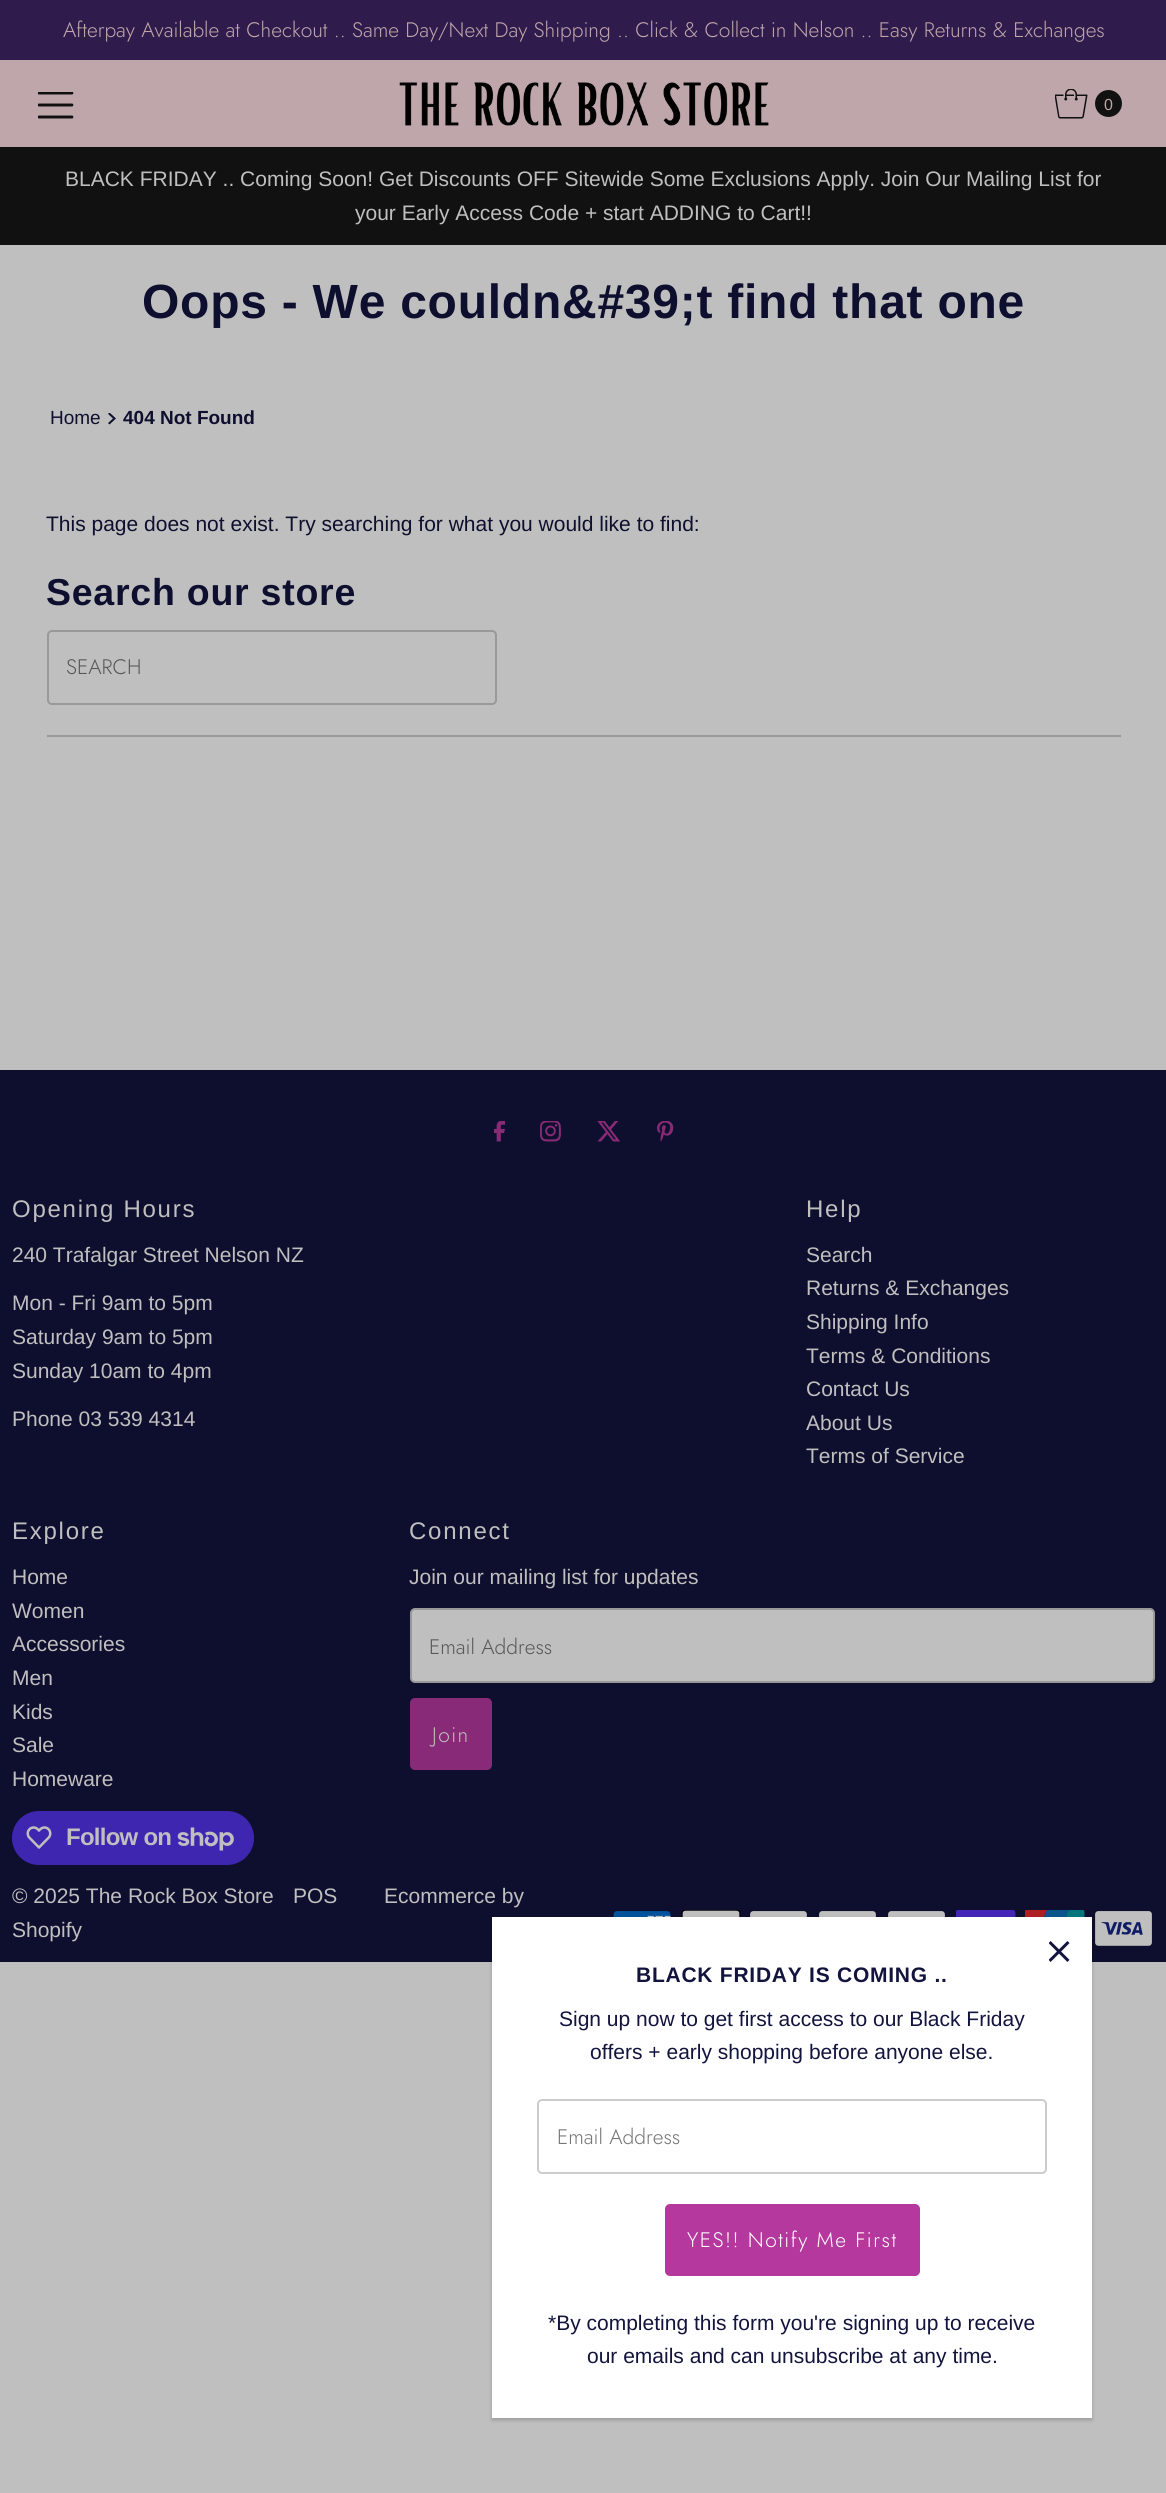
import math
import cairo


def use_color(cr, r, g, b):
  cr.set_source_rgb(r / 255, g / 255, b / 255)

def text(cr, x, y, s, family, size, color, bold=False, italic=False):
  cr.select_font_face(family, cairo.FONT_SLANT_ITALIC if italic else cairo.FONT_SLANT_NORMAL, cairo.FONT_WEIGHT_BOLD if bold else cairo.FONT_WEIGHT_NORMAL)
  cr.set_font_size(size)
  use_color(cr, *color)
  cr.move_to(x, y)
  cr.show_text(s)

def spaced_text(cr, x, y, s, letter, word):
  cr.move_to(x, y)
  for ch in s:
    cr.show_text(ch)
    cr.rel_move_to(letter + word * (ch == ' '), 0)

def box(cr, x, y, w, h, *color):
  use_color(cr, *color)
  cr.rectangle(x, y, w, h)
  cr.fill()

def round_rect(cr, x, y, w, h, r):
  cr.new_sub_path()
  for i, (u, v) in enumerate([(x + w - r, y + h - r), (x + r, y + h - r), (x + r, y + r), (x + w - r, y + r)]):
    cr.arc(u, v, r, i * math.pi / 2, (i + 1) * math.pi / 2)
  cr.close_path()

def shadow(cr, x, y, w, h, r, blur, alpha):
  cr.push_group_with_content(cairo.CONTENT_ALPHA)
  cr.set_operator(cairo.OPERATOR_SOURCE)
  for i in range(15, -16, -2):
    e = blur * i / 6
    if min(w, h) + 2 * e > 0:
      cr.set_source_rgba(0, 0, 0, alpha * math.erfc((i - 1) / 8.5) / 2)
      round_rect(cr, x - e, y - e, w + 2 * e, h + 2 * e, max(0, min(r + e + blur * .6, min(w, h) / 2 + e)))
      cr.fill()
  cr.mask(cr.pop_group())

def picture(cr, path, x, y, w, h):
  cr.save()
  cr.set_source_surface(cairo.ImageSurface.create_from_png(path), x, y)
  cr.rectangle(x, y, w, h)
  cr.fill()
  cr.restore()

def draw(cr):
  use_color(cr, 191, 191, 191)
  cr.paint()
  box(cr, 0, 0, 1166, 60, 47, 28, 77)
  box(cr, 0, 60, 1166, 87, 191, 166, 170)
  picture(cr, "img_01.png", 38, 92, 36, 27)
  picture(cr, "img_02.png", 399, 82, 370, 44)
  picture(cr, "img_03.png", 1055, 89, 33, 30)
  use_color(cr, 17, 17, 17)
  cr.arc(1108.5, 103.5, 13.5, 0, 2 * math.pi)
  cr.fill()
  box(cr, 0, 147, 1166, 98, 17, 17, 17)
  picture(cr, "img_04.png", 108, 413, 8, 12)
  box(cr, 47, 735, 1074, 2, 153, 153, 153)
  round_rect(cr, 48, 631, 448, 73, 4)
  cr.stroke()
  box(cr, 0, 1070, 1166, 892, 14, 15, 46)
  picture(cr, "img_05.png", 494, 1121, 12, 21)
  picture(cr, "img_06.png", 540, 1121, 21, 21)
  picture(cr, "img_07.png", 597, 1121, 24, 21)
  picture(cr, "img_08.png", 657, 1121, 17, 21)
  use_color(cr, 191, 191, 191)
  round_rect(cr, 411, 1609, 743, 73, 4)
  cr.fill_preserve()
  use_color(cr, 153, 153, 153)
  cr.stroke()
  use_color(cr, 136, 42, 119)
  round_rect(cr, 410, 1698, 82, 72, 5)
  cr.fill()
  use_color(cr, 63, 38, 176)
  round_rect(cr, 12, 1811, 242, 54, 27)
  cr.fill()
  picture(cr, "img_09.png", 26, 1826, 26, 23)
  picture(cr, "img_10.png", 177, 1827, 57, 24)
  picture(cr, "img_11.png", 612, 1910, 60, 7)
  picture(cr, "img_12.png", 681, 1910, 60, 7)
  picture(cr, "img_13.png", 749, 1910, 59, 7)
  picture(cr, "img_13.png", 818, 1910, 59, 7)
  picture(cr, "img_13.png", 887, 1910, 59, 7)
  picture(cr, "img_14.png", 956, 1910, 60, 7)
  picture(cr, "img_15.png", 1025, 1910, 60, 7)
  picture(cr, "img_16.png", 1094, 1910, 59, 37)
  use_color(cr, 0, 0, 0)
  shadow(cr, 492, 1919, 600, 501, 0, 2, 0.2)
  box(cr, 492, 1917, 600, 501, 255, 255, 255)
  picture(cr, "img_17.png", 1049, 1941, 21, 21)
  round_rect(cr, 538, 2100, 508, 73, 4)
  use_color(cr, 204, 204, 204)
  cr.stroke()
  use_color(cr, 181, 56, 158)
  round_rect(cr, 665, 2204, 255, 72, 5)
  cr.fill()
  text(cr, 63, 37, "Afterpay Available at Checkout .. Same Day/Next Day Shipping .. Click & Collect in Nelson .. Easy Returns & Exchanges", "Jost Light", 21, (191, 166, 170))
  text(cr, 1104, 110, "0", "Liberation Sans", 16, (191, 166, 170))
  text(cr, 65, 186, "BLACK FRIDAY .. Coming Soon! Get Discounts OFF Sitewide Some Exclusions Apply. Join Our Mailing List for", "Liberation Sans", 21, (191, 191, 191))
  text(cr, 355, 220, "your Early Access Code + start ADDING to Cart!!", "Liberation Sans", 21, (191, 191, 191))
  cr.select_font_face("Liberation Sans", cairo.FONT_SLANT_NORMAL, cairo.FONT_WEIGHT_BOLD)
  cr.set_font_size(48)
  use_color(cr, 14, 15, 46)
  spaced_text(cr, 142, 318, "Oops - We couldn&#39;t find that one", 0.75, 0)
  text(cr, 50, 424, "Home", "Liberation Sans", 19, (14, 15, 46))
  text(cr, 123, 424, "404 Not Found", "Liberation Sans", 19, (14, 15, 46), bold=True)
  text(cr, 46, 531, "This page does not exist. Try searching for what you would like to find:", "Liberation Sans", 21, (14, 15, 46))
  cr.select_font_face("Liberation Sans", cairo.FONT_SLANT_NORMAL, cairo.FONT_WEIGHT_BOLD)
  cr.set_font_size(37.5)
  spaced_text(cr, 46, 605, "Search our store", 0.75, 0)
  text(cr, 66, 674, "SEARCH", "Jost Light", 21, (88, 88, 88))
  cr.select_font_face("Liberation Sans")
  cr.set_font_size(24)
  use_color(cr, 191, 191, 191)
  spaced_text(cr, 12, 1217, "Opening Hours", 1.75, 0)
  text(cr, 12, 1262, "240 Trafalgar Street Nelson NZ", "Liberation Sans", 21, (191, 191, 191))
  text(cr, 12, 1310, "Mon - Fri 9am to 5pm", "Liberation Sans", 21, (191, 191, 191))
  text(cr, 12, 1344, "Saturday 9am to 5pm", "Liberation Sans", 21, (191, 191, 191))
  text(cr, 12, 1378, "Sunday 10am to 4pm", "Liberation Sans", 21, (191, 191, 191))
  text(cr, 12, 1426, "Phone 03 539 4314", "Liberation Sans", 21, (191, 191, 191))
  cr.set_font_size(24)
  spaced_text(cr, 806, 1217, "Help", 1.75, 0)
  text(cr, 806, 1262, "Search", "Liberation Sans", 21, (191, 191, 191))
  text(cr, 806, 1295, "Returns & Exchanges", "Liberation Sans", 21, (191, 191, 191))
  text(cr, 806, 1329, "Shipping Info", "Liberation Sans", 21, (191, 191, 191))
  text(cr, 806, 1363, "Terms & Conditions", "Liberation Sans", 21, (191, 191, 191))
  text(cr, 806, 1396, "Contact Us", "Liberation Sans", 21, (191, 191, 191))
  text(cr, 806, 1430, "About Us", "Liberation Sans", 21, (191, 191, 191))
  text(cr, 806, 1463, "Terms of Service", "Liberation Sans", 21, (191, 191, 191))
  cr.set_font_size(24)
  spaced_text(cr, 12, 1539, "Explore", 1.75, 0)
  text(cr, 12, 1584, "Home", "Liberation Sans", 21, (191, 191, 191))
  text(cr, 12, 1618, "Women", "Liberation Sans", 21, (191, 191, 191))
  text(cr, 12, 1651, "Accessories", "Liberation Sans", 21, (191, 191, 191))
  text(cr, 12, 1685, "Men", "Liberation Sans", 21, (191, 191, 191))
  text(cr, 12, 1719, "Kids", "Liberation Sans", 21, (191, 191, 191))
  text(cr, 12, 1752, "Sale", "Liberation Sans", 21, (191, 191, 191))
  text(cr, 12, 1786, "Homeware", "Liberation Sans", 21, (191, 191, 191))
  cr.set_font_size(24)
  spaced_text(cr, 409, 1539, "Connect", 1.75, 0)
  text(cr, 409, 1584, "Join our mailing list for updates", "Liberation Sans", 21, (191, 191, 191))
  text(cr, 429, 1654, "Email Address", "Jost Light", 21, (88, 88, 88))
  use_color(cr, 191, 191, 191)
  spaced_text(cr, 432, 1742, "Join", 1.5, 0)
  cr.select_font_face("Liberation Sans", cairo.FONT_SLANT_NORMAL, cairo.FONT_WEIGHT_BOLD)
  cr.set_font_size(24)
  spaced_text(cr, 66, 1845, "Follow on", -0.75, 0)
  text(cr, 12, 1903, "© 2025 The Rock Box Store", "Liberation Sans", 21, (191, 191, 191))
  text(cr, 293, 1903, "POS", "Liberation Sans", 21, (191, 191, 191))
  text(cr, 384, 1903, "Ecommerce by", "Liberation Sans", 21, (191, 191, 191))
  text(cr, 12, 1937, "Shopify", "Liberation Sans", 21, (191, 191, 191))
  cr.select_font_face("Liberation Sans", cairo.FONT_SLANT_NORMAL, cairo.FONT_WEIGHT_BOLD)
  use_color(cr, 18, 20, 61)
  spaced_text(cr, 636, 1982, "BLACK FRIDAY IS COMING ..", 0.75, 0)
  text(cr, 559, 2026, "Sign up now to get first access to our Black Friday", "Liberation Sans", 21, (18, 20, 61))
  text(cr, 590, 2059, "offers + early shopping before anyone else.", "Liberation Sans", 21, (18, 20, 61))
  text(cr, 557, 2144, "Email Address", "Jost Light", 21, (117, 117, 117))
  use_color(cr, 255, 255, 255)
  spaced_text(cr, 687, 2247, "YES!! Notify Me First", 1.5, 0)
  text(cr, 548, 2330, "*By completing this form you're signing up to receive", "Liberation Sans", 21, (18, 20, 61))
  text(cr, 587, 2363, "our emails and can unsubscribe at any time.", "Liberation Sans", 21, (18, 20, 61))


surface = cairo.ImageSurface(cairo.FORMAT_RGB24, 1166, 2493)
cr = cairo.Context(surface)
options = cairo.FontOptions()
options.set_hint_metrics(cairo.HINT_METRICS_OFF)
options.set_hint_style(cairo.HINT_STYLE_NONE)
cr.set_font_options(options)
cr.set_miter_limit(4)
draw(cr)
surface.write_to_png("out.png")
